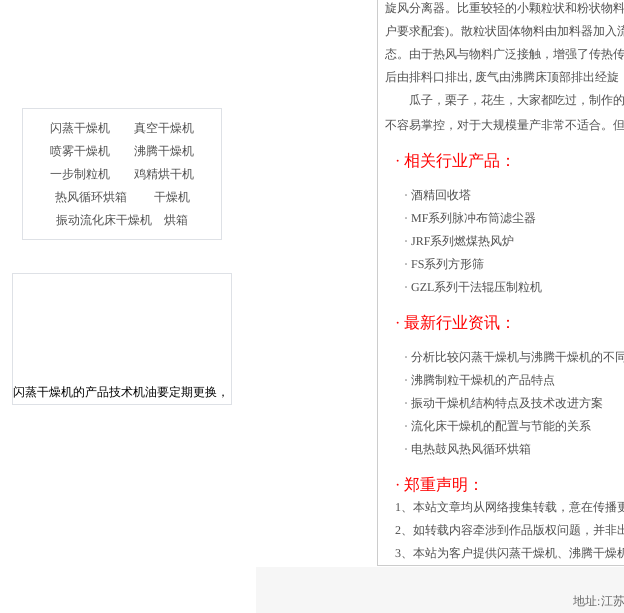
import math
import cairo


def use_color(cr, r, g, b):
  cr.set_source_rgb(r / 255, g / 255, b / 255)

def text(cr, x, y, s, family, size, color, bold=False, italic=False):
  cr.select_font_face(family, cairo.FONT_SLANT_ITALIC if italic else cairo.FONT_SLANT_NORMAL, cairo.FONT_WEIGHT_BOLD if bold else cairo.FONT_WEIGHT_NORMAL)
  cr.set_font_size(size)
  use_color(cr, *color)
  cr.move_to(x, y)
  cr.show_text(s)

def spaced_text(cr, x, y, s, letter, word):
  cr.move_to(x, y)
  for ch in s:
    cr.show_text(ch)
    cr.rel_move_to(letter + word * (ch == ' '), 0)

def box(cr, x, y, w, h, *color):
  use_color(cr, *color)
  cr.rectangle(x, y, w, h)
  cr.fill()

def draw(cr):
  use_color(cr, 255, 255, 255)
  cr.paint()
  cr.rectangle(22.5, 108.5, 199, 131)
  use_color(cr, 222, 225, 230)
  cr.set_line_width(1)
  cr.stroke()
  cr.rectangle(12.5, 273.5, 219, 131)
  cr.stroke()
  box(cr, 377, 0, 247, 566, 204, 204, 204)
  box(cr, 378, 0, 246, 565, 255, 255, 255)
  box(cr, 256, 567, 368, 46, 246, 246, 246)
  text(cr, 50, 132, "闪蒸干燥机", "WenQuanYi Zen Hei Medium", 12, (79, 79, 79))
  text(cr, 134, 132, "真空干燥机", "WenQuanYi Zen Hei Medium", 12, (79, 79, 79))
  text(cr, 50, 155, "喷雾干燥机", "WenQuanYi Zen Hei Medium", 12, (79, 79, 79))
  text(cr, 134, 155, "沸腾干燥机", "WenQuanYi Zen Hei Medium", 12, (79, 79, 79))
  text(cr, 50, 178, "一步制粒机", "WenQuanYi Zen Hei Medium", 12, (79, 79, 79))
  text(cr, 134, 178, "鸡精烘干机", "WenQuanYi Zen Hei Medium", 12, (79, 79, 79))
  text(cr, 55, 201, "热风循环烘箱", "WenQuanYi Zen Hei Medium", 12, (79, 79, 79))
  text(cr, 154, 201, "干燥机", "WenQuanYi Zen Hei Medium", 12, (79, 79, 79))
  text(cr, 56, 224, "振动流化床干燥机", "WenQuanYi Zen Hei Medium", 12, (79, 79, 79))
  text(cr, 164, 224, "烘箱", "WenQuanYi Zen Hei Medium", 12, (79, 79, 79))
  text(cr, 13, 396, "闪蒸干燥机的产品技术机油要定期更换，", "WenQuanYi Zen Hei Medium", 12, (0, 0, 0))
  text(cr, 385, 12, "旋风分离器。比重较轻的小颗粒状和粉状物料", "WenQuanYi Zen Hei Medium", 12, (79, 79, 79))
  text(cr, 385, 35, "户要求配套", "WenQuanYi Zen Hei Medium", 12, (79, 79, 79))
  text(cr, 445, 35, ")", "Liberation Serif", 12, (79, 79, 79))
  text(cr, 449, 35, "。散粒状固体物料由加料器加入流", "WenQuanYi Zen Hei Medium", 12, (79, 79, 79))
  text(cr, 385, 58, "态。由于热风与物料广泛接触，增强了传热传", "WenQuanYi Zen Hei Medium", 12, (79, 79, 79))
  text(cr, 385, 81, "后由排料口排出", "WenQuanYi Zen Hei Medium", 12, (79, 79, 79))
  text(cr, 469, 81, ",", "Liberation Serif", 12, (79, 79, 79))
  text(cr, 475, 81, "废气由沸腾床顶部排出经旋", "WenQuanYi Zen Hei Medium", 12, (79, 79, 79))
  text(cr, 409, 104, "瓜子，栗子，花生，大家都吃过，制作的", "WenQuanYi Zen Hei Medium", 12, (79, 79, 79))
  text(cr, 385, 129, "不容易掌控，对于大规模量产非常不适合。但", "WenQuanYi Zen Hei Medium", 12, (79, 79, 79))
  text(cr, 395, 166, "·", "Liberation Serif", 16, (255, 0, 0))
  text(cr, 404, 166, "相关行业产品：", "WenQuanYi Zen Hei Medium", 16, (255, 0, 0))
  text(cr, 404, 199, "·", "Liberation Serif", 12, (79, 79, 79))
  text(cr, 411, 199, "酒精回收塔", "WenQuanYi Zen Hei Medium", 12, (79, 79, 79))
  text(cr, 404, 222, "· MF", "Liberation Serif", 12, (79, 79, 79))
  text(cr, 428, 222, "系列脉冲布筒滤尘器", "WenQuanYi Zen Hei Medium", 12, (79, 79, 79))
  text(cr, 404, 245, "· JRF", "Liberation Serif", 12, (79, 79, 79))
  text(cr, 430, 245, "系列燃煤热风炉", "WenQuanYi Zen Hei Medium", 12, (79, 79, 79))
  text(cr, 404, 268, "· FS", "Liberation Serif", 12, (79, 79, 79))
  text(cr, 424, 268, "系列方形筛", "WenQuanYi Zen Hei Medium", 12, (79, 79, 79))
  text(cr, 404, 291, "· GZL", "Liberation Serif", 12, (79, 79, 79))
  text(cr, 434, 291, "系列干法辊压制粒机", "WenQuanYi Zen Hei Medium", 12, (79, 79, 79))
  text(cr, 395, 328, "·", "Liberation Serif", 16, (255, 0, 0))
  text(cr, 404, 328, "最新行业资讯：", "WenQuanYi Zen Hei Medium", 16, (255, 0, 0))
  text(cr, 404, 361, "·", "Liberation Serif", 12, (79, 79, 79))
  text(cr, 411, 361, "分析比较闪蒸干燥机与沸腾干燥机的不同", "WenQuanYi Zen Hei Medium", 12, (79, 79, 79))
  text(cr, 404, 384, "·", "Liberation Serif", 12, (79, 79, 79))
  text(cr, 411, 384, "沸腾制粒干燥机的产品特点", "WenQuanYi Zen Hei Medium", 12, (79, 79, 79))
  text(cr, 404, 407, "·", "Liberation Serif", 12, (79, 79, 79))
  text(cr, 411, 407, "振动干燥机结构特点及技术改进方案", "WenQuanYi Zen Hei Medium", 12, (79, 79, 79))
  text(cr, 404, 430, "·", "Liberation Serif", 12, (79, 79, 79))
  text(cr, 411, 430, "流化床干燥机的配置与节能的关系", "WenQuanYi Zen Hei Medium", 12, (79, 79, 79))
  text(cr, 404, 453, "·", "Liberation Serif", 12, (79, 79, 79))
  text(cr, 411, 453, "电热鼓风热风循环烘箱", "WenQuanYi Zen Hei Medium", 12, (79, 79, 79))
  text(cr, 395, 490, "·", "Liberation Serif", 16, (255, 0, 0))
  text(cr, 404, 490, "郑重声明：", "WenQuanYi Zen Hei Medium", 16, (255, 0, 0))
  text(cr, 395, 511, "1", "Liberation Serif", 12, (79, 79, 79))
  text(cr, 401, 511, "、本站文章均从网络搜集转载，意在传播更", "WenQuanYi Zen Hei Medium", 12, (79, 79, 79))
  text(cr, 395, 534, "2", "Liberation Serif", 12, (79, 79, 79))
  text(cr, 401, 534, "、如转载内容牵涉到作品版权问题，并非出", "WenQuanYi Zen Hei Medium", 12, (79, 79, 79))
  text(cr, 395, 557, "3", "Liberation Serif", 12, (79, 79, 79))
  text(cr, 401, 557, "、本站为客户提供闪蒸干燥机、沸腾干燥机", "WenQuanYi Zen Hei Medium", 12, (79, 79, 79))
  text(cr, 573, 605, "地址", "WenQuanYi Zen Hei Medium", 12, (102, 102, 102))
  text(cr, 597, 605, ":", "Liberation Serif", 12, (102, 102, 102))
  cr.select_font_face("WenQuanYi Zen Hei Medium")
  spaced_text(cr, 601, 605, "江苏", 0, -1)


surface = cairo.ImageSurface(cairo.FORMAT_RGB24, 624, 613)
cr = cairo.Context(surface)
options = cairo.FontOptions()
options.set_hint_metrics(cairo.HINT_METRICS_OFF)
options.set_hint_style(cairo.HINT_STYLE_NONE)
cr.set_font_options(options)
cr.set_miter_limit(4)
draw(cr)
surface.write_to_png("out.png")
